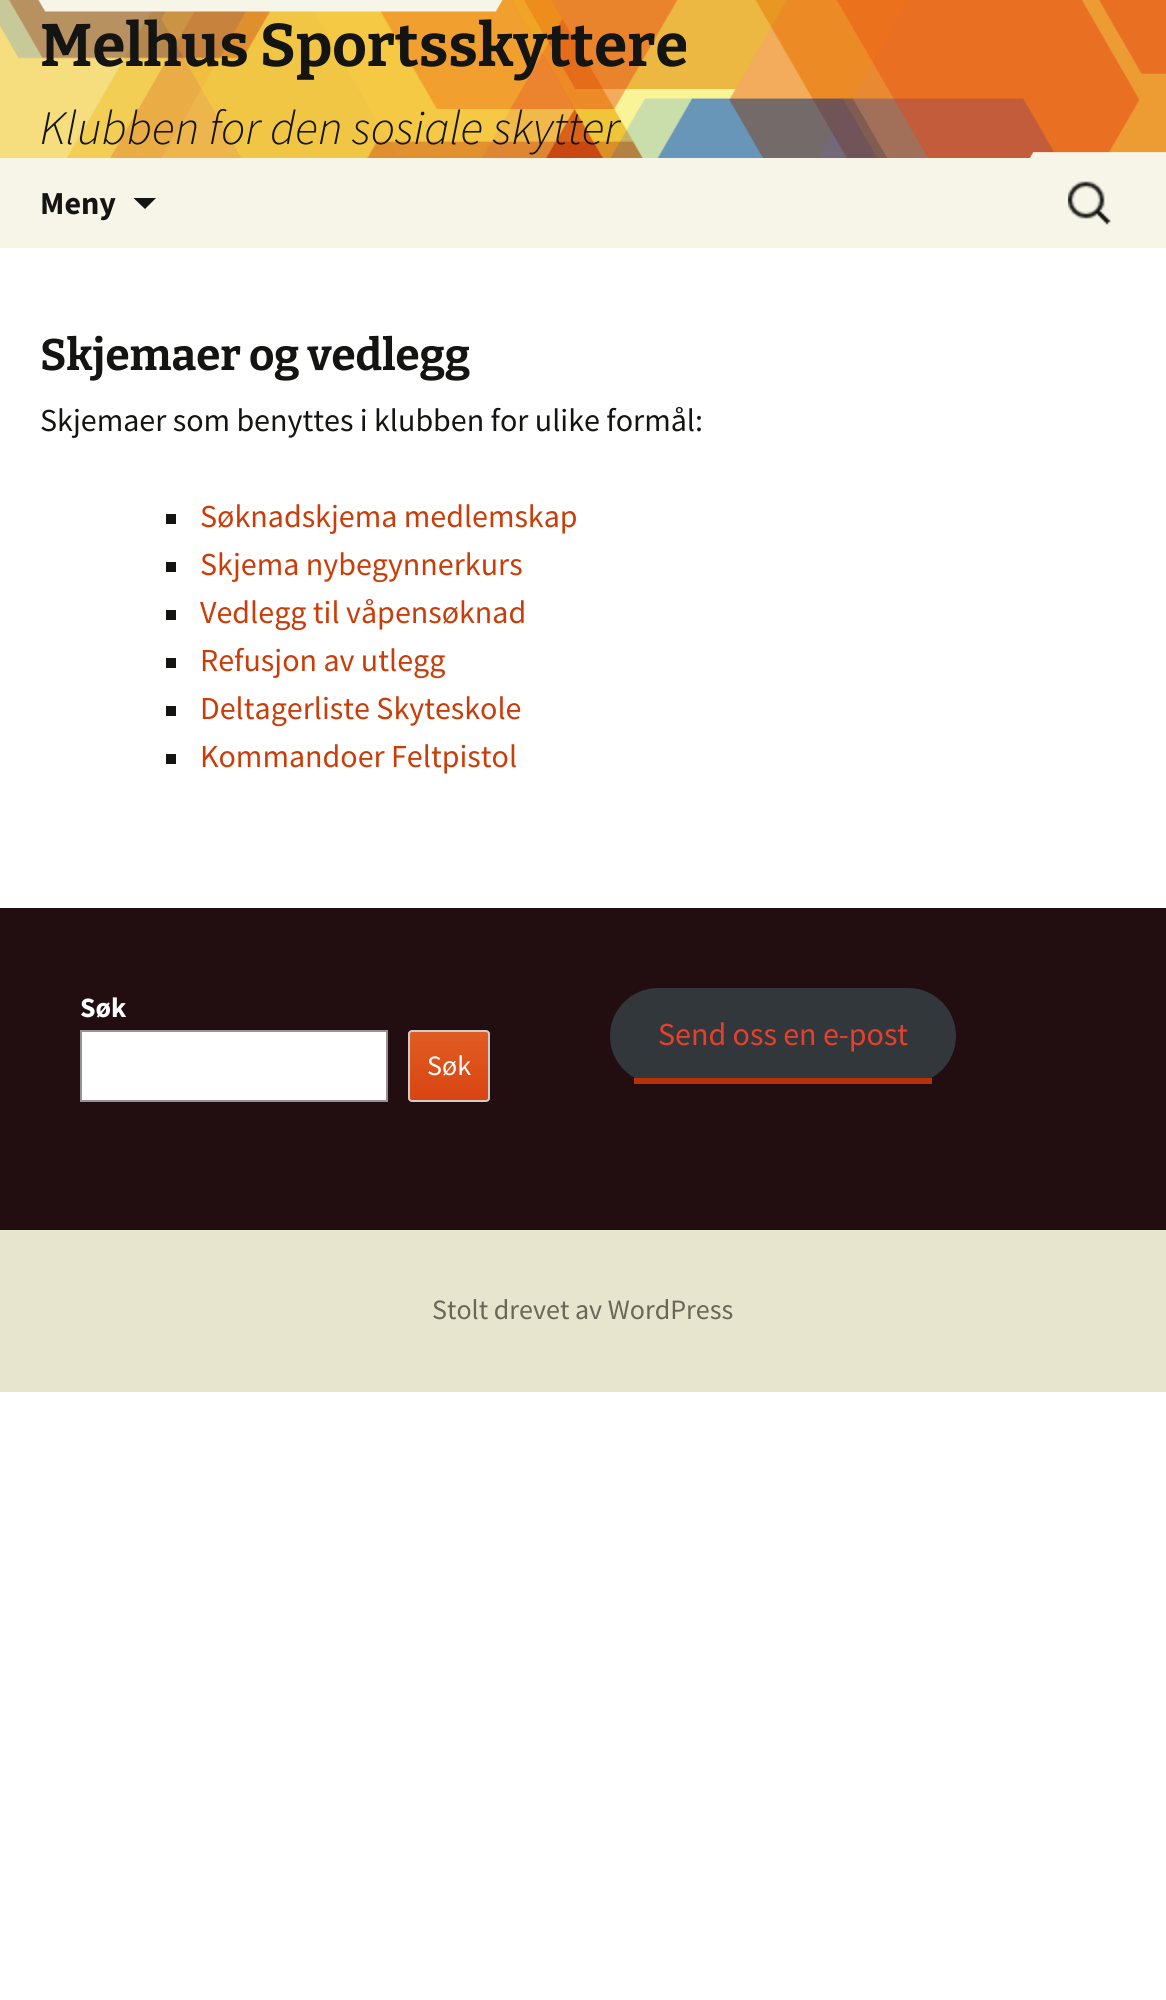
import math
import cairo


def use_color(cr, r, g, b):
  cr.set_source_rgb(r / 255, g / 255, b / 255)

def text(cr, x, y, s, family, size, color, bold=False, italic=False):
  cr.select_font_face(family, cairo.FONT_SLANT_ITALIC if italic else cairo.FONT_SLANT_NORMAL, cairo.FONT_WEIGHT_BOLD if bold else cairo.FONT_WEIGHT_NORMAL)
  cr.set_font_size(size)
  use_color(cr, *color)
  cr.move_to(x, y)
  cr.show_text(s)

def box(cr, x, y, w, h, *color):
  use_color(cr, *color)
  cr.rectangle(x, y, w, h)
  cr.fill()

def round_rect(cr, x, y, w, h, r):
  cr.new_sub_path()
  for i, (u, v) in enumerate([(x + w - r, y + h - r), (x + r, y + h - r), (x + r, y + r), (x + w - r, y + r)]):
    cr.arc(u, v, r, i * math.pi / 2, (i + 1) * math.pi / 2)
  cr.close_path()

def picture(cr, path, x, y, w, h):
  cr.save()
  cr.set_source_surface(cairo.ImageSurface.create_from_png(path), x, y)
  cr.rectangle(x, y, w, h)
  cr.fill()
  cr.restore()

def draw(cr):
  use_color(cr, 255, 255, 255)
  cr.paint()
  picture(cr, "img_01.png", 0, 0, 1166, 158)
  box(cr, 0, 158, 1166, 90, 247, 245, 231)
  use_color(cr, 20, 20, 18)
  cr.new_path()
  cr.move_to(133.5, 198)
  cr.line_to(156, 198)
  cr.line_to(145, 209)
  cr.close_path()
  cr.fill()
  picture(cr, "img_02.png", 1068, 181, 43, 44)
  box(cr, 166, 514, 10, 10, 20, 20, 18)
  box(cr, 166, 562, 10, 10, 20, 20, 18)
  box(cr, 166, 610, 10, 10, 20, 20, 18)
  box(cr, 166, 658, 10, 10, 20, 20, 18)
  box(cr, 166, 706, 10, 10, 20, 20, 18)
  box(cr, 166, 754, 10, 10, 20, 20, 18)
  box(cr, 0, 1230, 1166, 162, 232, 229, 206)
  box(cr, 0, 908, 1166, 322, 34, 14, 16)
  use_color(cr, 255, 255, 255)
  cr.rectangle(81, 1031, 306, 70)
  cr.fill_preserve()
  use_color(cr, 148, 148, 148)
  cr.stroke()
  cr.save()
  round_rect(cr, 408, 1030, 82, 72, 4)
  cr.clip()
  gradient = cairo.LinearGradient(449, 1032, 449, 1100)
  gradient.add_color_stop_rgba(0, 0.878, 0.365, 0.133, 1)
  gradient.add_color_stop_rgba(1, 0.851, 0.267, 0.071, 1)
  cr.set_source(gradient)
  cr.rectangle(408, 1032, 82, 68)
  cr.fill()
  cr.restore()
  round_rect(cr, 409, 1031, 80, 70, 3)
  use_color(cr, 204, 204, 204)
  cr.stroke()
  use_color(cr, 50, 55, 60)
  round_rect(cr, 610, 988, 346, 96, 48)
  cr.fill()
  box(cr, 634, 1078, 298, 6, 185, 50, 7)
  text(cr, 40, 66, "Melhus Sportsskyttere", "Bitter Thin", 60, (20, 20, 18))
  text(cr, 40, 144, "Klubben for den sosiale skytter", "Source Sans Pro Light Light", 48, (20, 20, 18), italic=True)
  text(cr, 40, 214, "Meny", "Source Sans Pro", 32, (20, 20, 18), bold=True)
  text(cr, 40, 370, "Skjemaer og vedlegg", "Bitter Thin", 44, (20, 20, 18))
  text(cr, 40, 431, "Skjemaer som benyttes i klubben for ulike formål:", "Source Sans Pro", 32, (20, 20, 18))
  text(cr, 200, 527, "Søknadskjema medlemskap", "Source Sans Pro", 32, (202, 60, 8))
  text(cr, 200, 575, "Skjema nybegynnerkurs", "Source Sans Pro", 32, (202, 60, 8))
  text(cr, 200, 623, "Vedlegg til våpensøknad", "Source Sans Pro", 32, (202, 60, 8))
  text(cr, 200, 671, "Refusjon av utlegg", "Source Sans Pro", 32, (202, 60, 8))
  text(cr, 200, 719, "Deltagerliste Skyteskole", "Source Sans Pro", 32, (202, 60, 8))
  text(cr, 200, 767, "Kommandoer Feltpistol", "Source Sans Pro", 32, (202, 60, 8))
  text(cr, 80, 1017, "Søk", "Source Sans Pro", 28, (255, 255, 255), bold=True)
  text(cr, 427, 1075, "Søk", "Source Sans Pro", 28, (255, 255, 255))
  text(cr, 658, 1045, "Send oss en e-post", "Source Sans Pro", 32, (230, 64, 42))
  text(cr, 432, 1319, "Stolt drevet av WordPress", "Source Sans Pro", 28, (104, 103, 88))


surface = cairo.ImageSurface(cairo.FORMAT_RGB24, 1166, 2000)
cr = cairo.Context(surface)
options = cairo.FontOptions()
options.set_hint_metrics(cairo.HINT_METRICS_OFF)
options.set_hint_style(cairo.HINT_STYLE_NONE)
cr.set_font_options(options)
cr.set_miter_limit(4)
draw(cr)
surface.write_to_png("out.png")
